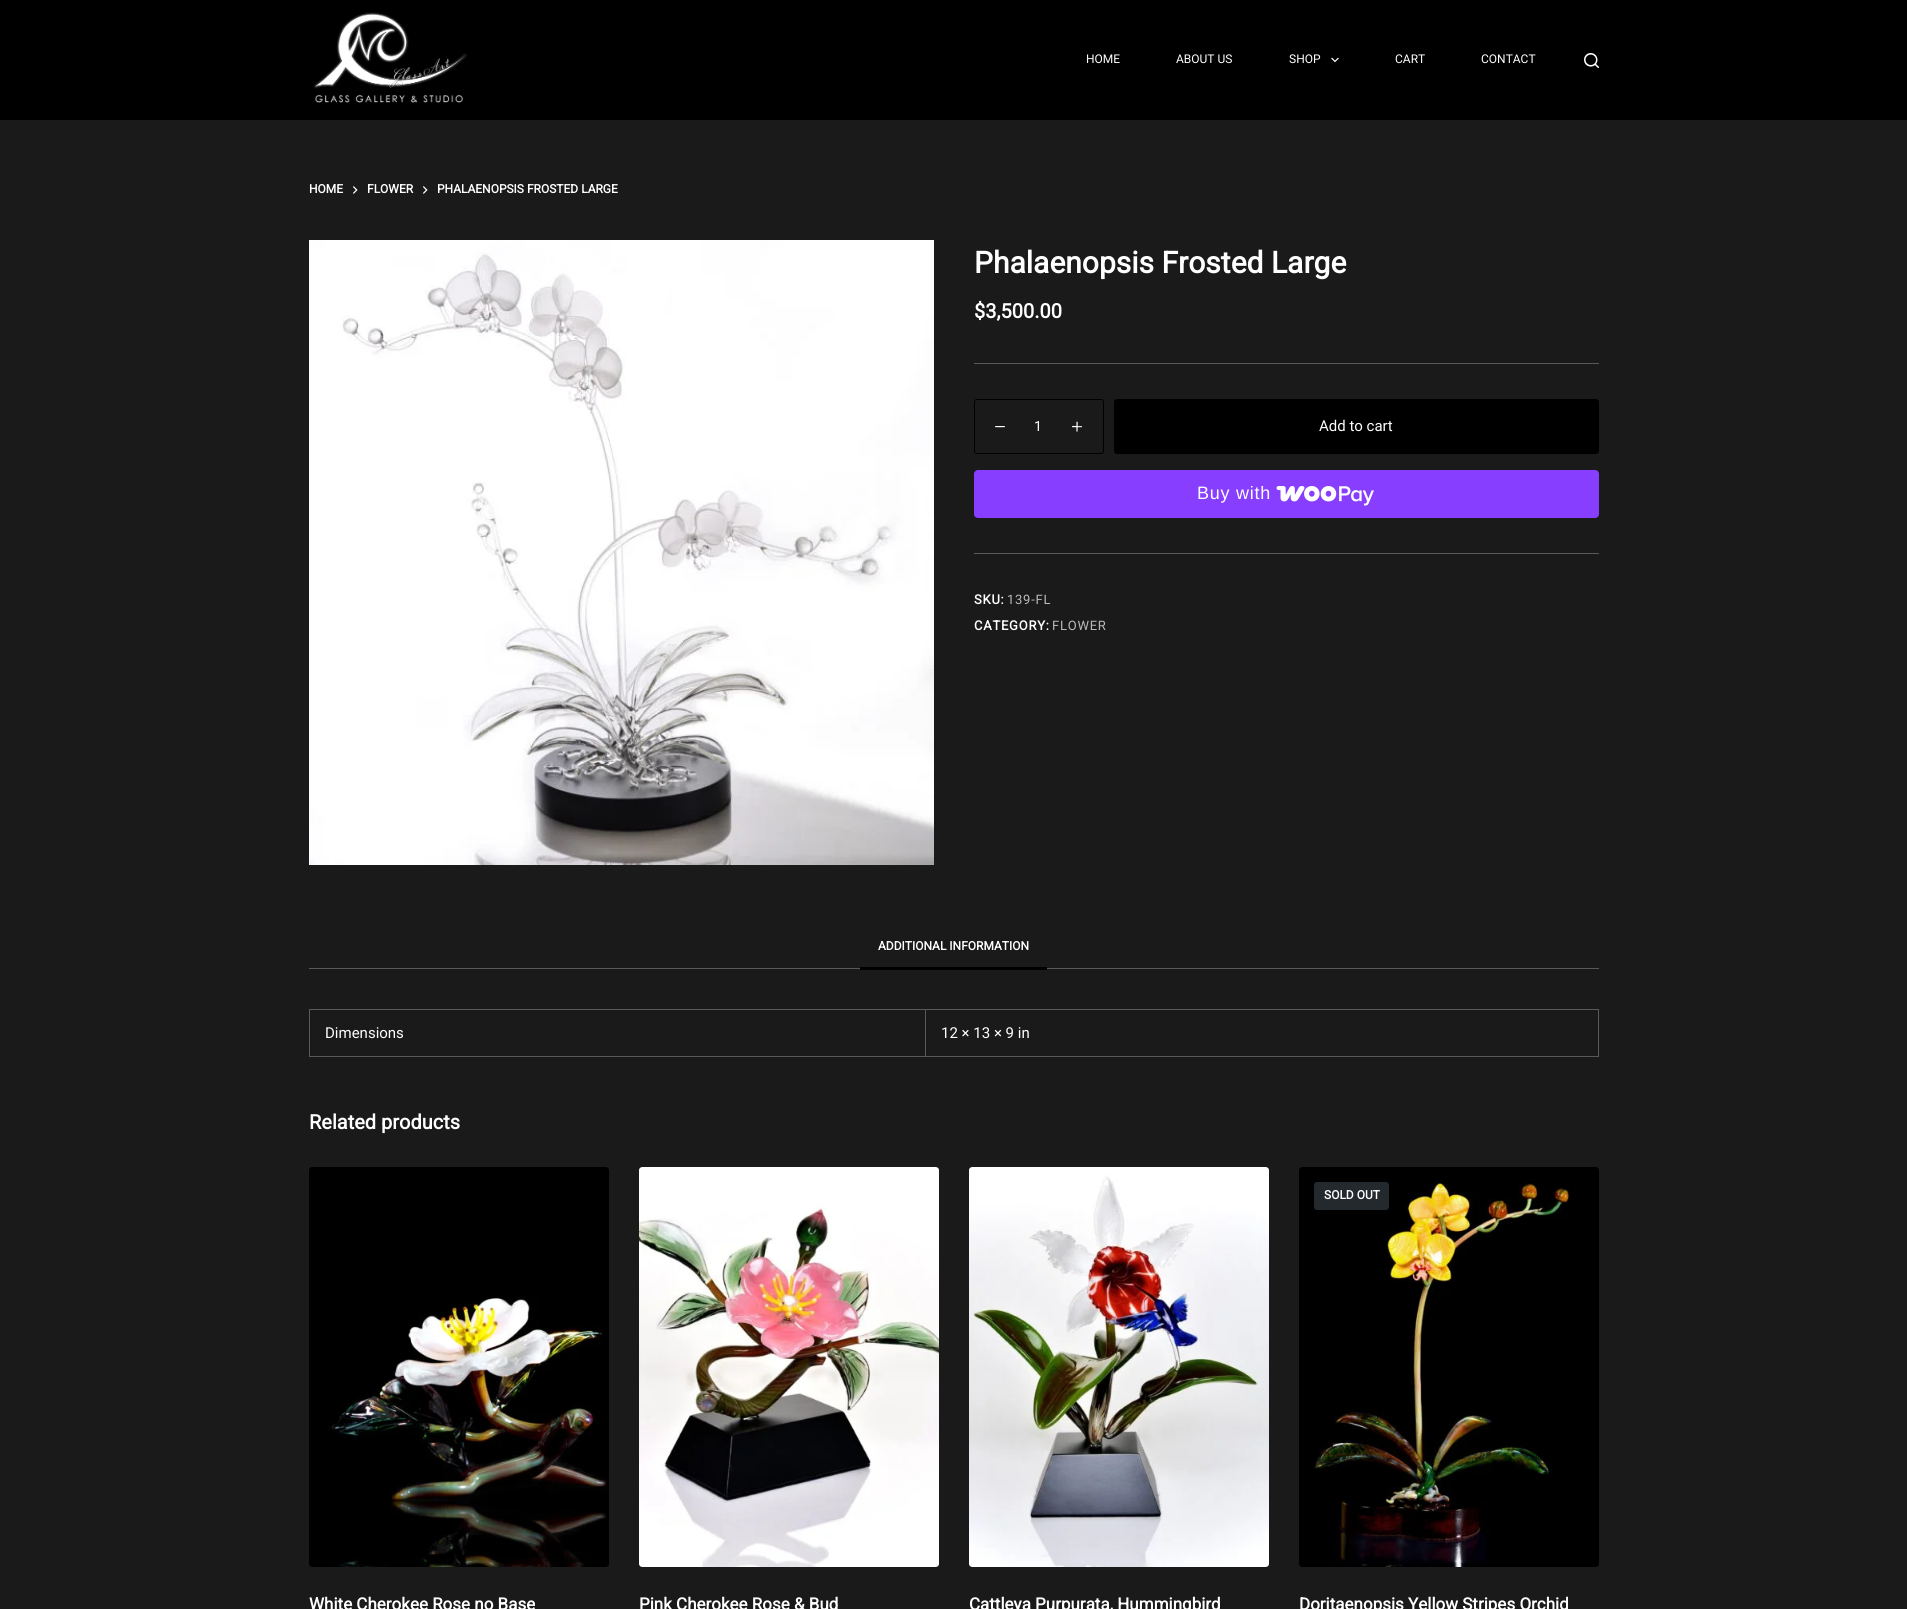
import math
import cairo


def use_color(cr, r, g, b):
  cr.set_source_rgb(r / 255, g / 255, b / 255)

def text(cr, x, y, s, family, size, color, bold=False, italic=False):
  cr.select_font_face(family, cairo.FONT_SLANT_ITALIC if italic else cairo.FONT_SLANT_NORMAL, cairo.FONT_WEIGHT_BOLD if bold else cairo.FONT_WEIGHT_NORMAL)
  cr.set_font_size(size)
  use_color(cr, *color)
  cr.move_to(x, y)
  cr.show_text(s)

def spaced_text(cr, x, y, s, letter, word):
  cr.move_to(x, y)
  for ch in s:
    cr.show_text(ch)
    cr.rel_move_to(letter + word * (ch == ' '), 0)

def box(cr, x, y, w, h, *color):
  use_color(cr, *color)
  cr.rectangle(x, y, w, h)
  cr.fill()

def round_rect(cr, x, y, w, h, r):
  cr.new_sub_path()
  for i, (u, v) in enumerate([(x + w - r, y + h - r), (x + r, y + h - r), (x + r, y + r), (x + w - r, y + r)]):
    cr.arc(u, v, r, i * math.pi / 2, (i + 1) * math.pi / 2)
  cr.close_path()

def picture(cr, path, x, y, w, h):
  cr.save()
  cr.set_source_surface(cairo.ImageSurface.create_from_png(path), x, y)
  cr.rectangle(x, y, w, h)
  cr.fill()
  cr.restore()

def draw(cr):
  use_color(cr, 26, 26, 26)
  cr.paint()
  box(cr, 0, 0, 1907, 120, 0, 0, 0)
  picture(cr, "img_01.png", 313, 12, 154, 91)
  picture(cr, "img_02.png", 1331, 57, 8, 6)
  picture(cr, "img_03.png", 1584, 53, 15, 15)
  picture(cr, "img_04.png", 353, 186, 5, 8)
  picture(cr, "img_04.png", 423, 186, 5, 8)
  picture(cr, "img_05.png", 309, 240, 625, 625)
  box(cr, 974, 363, 625, 1, 89, 89, 89)
  round_rect(cr, 974.5, 399.5, 129, 54, 2.5)
  use_color(cr, 0, 0, 0)
  cr.set_line_width(1)
  cr.stroke()
  picture(cr, "img_06.png", 995, 426, 10, 2)
  picture(cr, "img_07.png", 1072, 421, 10, 11)
  round_rect(cr, 1114, 399, 485, 55, 3)
  cr.fill()
  use_color(cr, 135, 62, 255)
  round_rect(cr, 974, 470, 625, 48, 4)
  cr.fill()
  picture(cr, "img_08.png", 1276, 486, 98, 20)
  box(cr, 974, 553, 625, 1, 89, 89, 89)
  box(cr, 309, 968, 1290, 1, 89, 89, 89)
  box(cr, 860, 967, 187, 3, 0, 0, 0)
  box(cr, 309, 1009, 1290, 1, 89, 89, 89)
  box(cr, 1598, 1009, 1, 48, 89, 89, 89)
  box(cr, 309, 1056, 1290, 1, 89, 89, 89)
  box(cr, 309, 1009, 1, 48, 89, 89, 89)
  box(cr, 925, 1009, 1, 48, 89, 89, 89)
  picture(cr, "img_09.png", 309, 1167, 300, 400)
  picture(cr, "img_10.png", 639, 1167, 300, 400)
  picture(cr, "img_11.png", 969, 1167, 300, 400)
  picture(cr, "img_12.png", 1299, 1167, 300, 400)
  use_color(cr, 36, 41, 46)
  round_rect(cr, 1314, 1182, 75, 28, 3)
  cr.fill()
  text(cr, 1086, 63, "HOME", "Roboto", 12, (255, 255, 255))
  text(cr, 1176, 63, "ABOUT US", "Roboto", 12, (255, 255, 255))
  text(cr, 1289, 63, "SHOP", "Roboto", 12, (255, 255, 255))
  text(cr, 1395, 63, "CART", "Roboto", 12, (255, 255, 255))
  text(cr, 1481, 63, "CONTACT", "Roboto", 12, (255, 255, 255))
  text(cr, 309, 193, "HOME", "Roboto", 12, (255, 255, 255), bold=True)
  text(cr, 367, 193, "FLOWER", "Roboto", 12, (255, 255, 255), bold=True)
  text(cr, 437, 193, "PHALAENOPSIS FROSTED LARGE", "Roboto", 12, (255, 255, 255), bold=True)
  text(cr, 974, 273, "Phalaenopsis Frosted Large", "Roboto", 30, (255, 255, 255), bold=True)
  text(cr, 974, 318, "$3,500.00", "Roboto", 20, (255, 255, 255), bold=True)
  text(cr, 1034, 431, "1", "Roboto", 14, (255, 255, 255))
  text(cr, 1319, 431, "Add to cart", "Roboto", 15, (255, 255, 255))
  cr.select_font_face("Liberation Sans")
  cr.set_font_size(18)
  spaced_text(cr, 1197, 499, "Buy with", 0.75, 0)
  cr.select_font_face("Roboto", cairo.FONT_SLANT_NORMAL, cairo.FONT_WEIGHT_BOLD)
  cr.set_font_size(13)
  spaced_text(cr, 974, 604, "SKU:", 0.75, 0)
  cr.select_font_face("Roboto")
  use_color(cr, 186, 186, 186)
  spaced_text(cr, 1007, 604, "139-FL", 0.75, 0)
  cr.select_font_face("Roboto", cairo.FONT_SLANT_NORMAL, cairo.FONT_WEIGHT_BOLD)
  use_color(cr, 255, 255, 255)
  spaced_text(cr, 974, 630, "CATEGORY:", 0.75, 0)
  cr.select_font_face("Roboto")
  use_color(cr, 186, 186, 186)
  spaced_text(cr, 1052, 630, "FLOWER", 0.75, 0)
  text(cr, 878, 950, "ADDITIONAL INFORMATION", "Roboto", 12, (255, 255, 255), bold=True)
  text(cr, 325, 1038, "Dimensions", "Roboto", 15, (255, 255, 255))
  text(cr, 941, 1038, "12 × 13 × 9 in", "Roboto", 15, (255, 255, 255))
  text(cr, 309, 1129, "Related products", "Roboto", 20, (255, 255, 255), bold=True)
  text(cr, 309, 1610, "White Cherokee Rose no Base", "Roboto", 17, (255, 255, 255), bold=True)
  text(cr, 639, 1610, "Pink Cherokee Rose & Bud", "Roboto", 17, (255, 255, 255), bold=True)
  text(cr, 969, 1610, "Cattleya Purpurata, Hummingbird", "Roboto", 17, (255, 255, 255), bold=True)
  text(cr, 1324, 1199, "SOLD OUT", "Roboto", 12, (255, 255, 255), bold=True)
  text(cr, 1299, 1610, "Doritaenopsis Yellow Stripes Orchid", "Roboto", 17, (255, 255, 255), bold=True)


surface = cairo.ImageSurface(cairo.FORMAT_RGB24, 1907, 1609)
cr = cairo.Context(surface)
options = cairo.FontOptions()
options.set_hint_metrics(cairo.HINT_METRICS_OFF)
options.set_hint_style(cairo.HINT_STYLE_NONE)
cr.set_font_options(options)
cr.set_miter_limit(4)
draw(cr)
surface.write_to_png("out.png")
